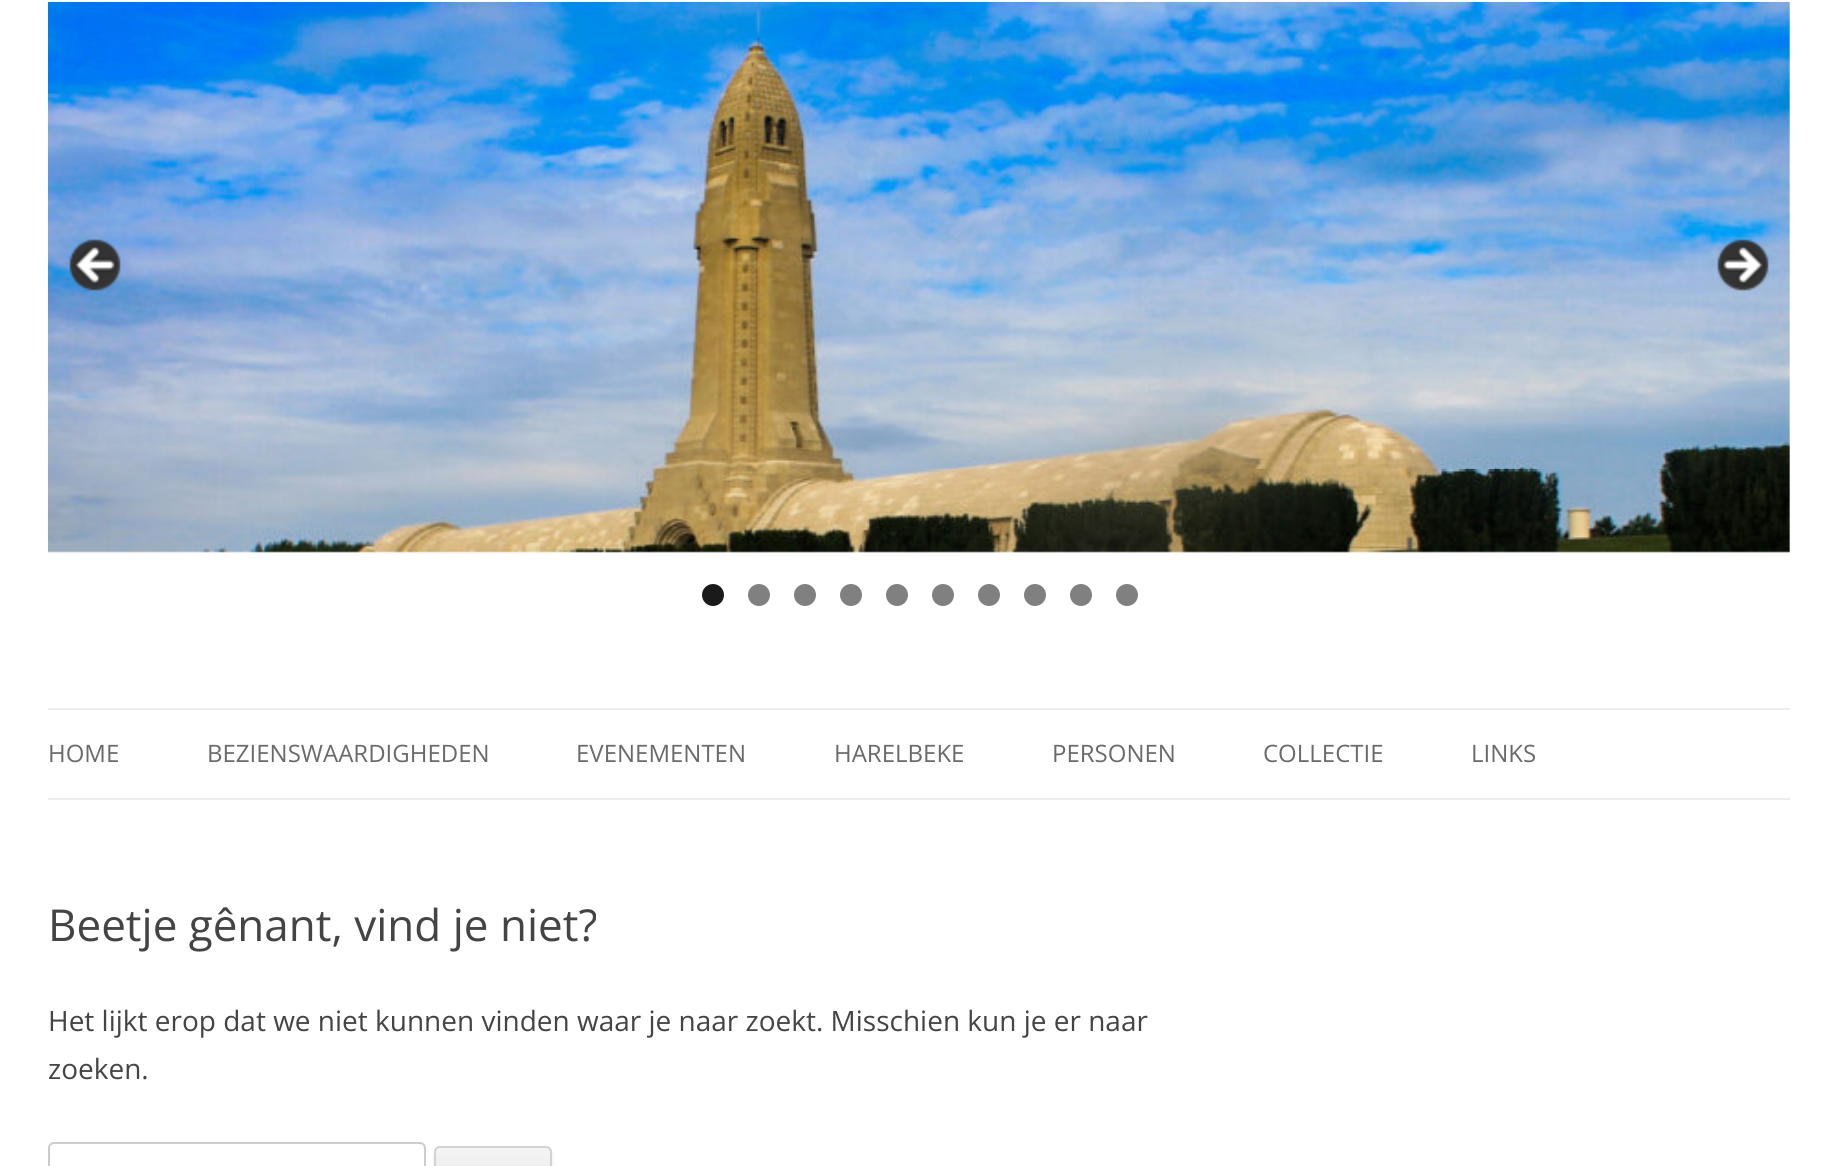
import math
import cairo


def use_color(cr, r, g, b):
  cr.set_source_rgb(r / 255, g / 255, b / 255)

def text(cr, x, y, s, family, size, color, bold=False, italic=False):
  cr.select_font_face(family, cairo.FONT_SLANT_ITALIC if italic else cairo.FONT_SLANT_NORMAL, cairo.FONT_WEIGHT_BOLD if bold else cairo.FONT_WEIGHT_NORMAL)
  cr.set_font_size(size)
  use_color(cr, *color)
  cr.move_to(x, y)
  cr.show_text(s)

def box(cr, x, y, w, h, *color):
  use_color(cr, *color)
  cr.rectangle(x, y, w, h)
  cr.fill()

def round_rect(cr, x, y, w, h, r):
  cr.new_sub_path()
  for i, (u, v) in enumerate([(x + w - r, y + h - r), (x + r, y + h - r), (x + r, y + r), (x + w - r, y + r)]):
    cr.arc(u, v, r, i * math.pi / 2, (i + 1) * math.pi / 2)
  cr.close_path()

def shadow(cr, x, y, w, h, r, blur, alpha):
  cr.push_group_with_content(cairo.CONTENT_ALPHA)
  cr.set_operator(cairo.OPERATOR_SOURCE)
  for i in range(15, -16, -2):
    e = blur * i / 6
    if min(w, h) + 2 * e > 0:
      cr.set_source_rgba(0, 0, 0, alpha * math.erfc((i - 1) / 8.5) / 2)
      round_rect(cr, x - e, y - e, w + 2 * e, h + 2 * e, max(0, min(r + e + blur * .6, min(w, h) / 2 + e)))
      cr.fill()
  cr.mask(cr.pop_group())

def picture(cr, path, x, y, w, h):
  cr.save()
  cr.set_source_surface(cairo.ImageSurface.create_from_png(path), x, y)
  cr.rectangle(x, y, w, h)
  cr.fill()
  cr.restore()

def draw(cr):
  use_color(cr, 255, 255, 255)
  cr.paint()
  picture(cr, "img_01.png", 48, 2, 1742, 551)
  picture(cr, "img_02.png", 69, 239, 52, 52)
  picture(cr, "img_03.png", 1717, 239, 52, 52)
  use_color(cr, 26, 26, 26)
  cr.arc(713, 595, 11, 0, 2 * math.pi)
  cr.fill()
  use_color(cr, 128, 128, 128)
  cr.arc(759, 595, 11, 0, 2 * math.pi)
  cr.fill()
  cr.arc(805, 595, 11, 0, 2 * math.pi)
  cr.fill()
  cr.arc(851, 595, 11, 0, 2 * math.pi)
  cr.fill()
  cr.arc(897, 595, 11, 0, 2 * math.pi)
  cr.fill()
  cr.arc(943, 595, 11, 0, 2 * math.pi)
  cr.fill()
  cr.arc(989, 595, 11, 0, 2 * math.pi)
  cr.fill()
  cr.arc(1035, 595, 11, 0, 2 * math.pi)
  cr.fill()
  cr.arc(1081, 595, 11, 0, 2 * math.pi)
  cr.fill()
  cr.arc(1127, 595, 11, 0, 2 * math.pi)
  cr.fill()
  box(cr, 48, 708, 1742, 2, 237, 237, 237)
  box(cr, 48, 798, 1742, 2, 237, 237, 237)
  round_rect(cr, 49, 1143, 376, 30, 5)
  use_color(cr, 204, 204, 204)
  cr.stroke()
  use_color(cr, 64, 64, 64)
  shadow(cr, 434, 1148, 118, 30, 6, 2, 0.1)
  cr.save()
  round_rect(cr, 434, 1146, 118, 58, 6)
  cr.clip()
  gradient = cairo.LinearGradient(493, 1148, 493, 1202)
  gradient.add_color_stop_rgba(0, 0.957, 0.957, 0.957, 1)
  gradient.add_color_stop_rgba(1, 0.902, 0.902, 0.902, 1)
  cr.set_source(gradient)
  cr.rectangle(434, 1148, 118, 18)
  cr.fill()
  cr.restore()
  round_rect(cr, 435, 1147, 116, 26, 5)
  use_color(cr, 210, 210, 210)
  cr.stroke()
  text(cr, 48, 762, "HOME", "Open Sans", 24, (106, 106, 106))
  text(cr, 207, 762, "BEZIENSWAARDIGHEDEN", "Open Sans", 24, (106, 106, 106))
  text(cr, 576, 762, "EVENEMENTEN", "Open Sans", 24, (106, 106, 106))
  text(cr, 834, 762, "HARELBEKE", "Open Sans", 24, (106, 106, 106))
  text(cr, 1052, 762, "PERSONEN", "Open Sans", 24, (106, 106, 106))
  text(cr, 1263, 762, "COLLECTIE", "Open Sans", 24, (106, 106, 106))
  text(cr, 1471, 762, "LINKS", "Open Sans", 24, (106, 106, 106))
  text(cr, 48, 941, "Beetje gênant, vind je niet?", "Open Sans", 44, (68, 68, 68))
  text(cr, 48, 1031, "Het lijkt erop dat we niet kunnen vinden waar je naar zoekt. Misschien kun je er naar", "Open Sans", 28, (68, 68, 68))
  text(cr, 48, 1079, "zoeken.", "Open Sans", 28, (68, 68, 68))


surface = cairo.ImageSurface(cairo.FORMAT_RGB24, 1837, 1166)
cr = cairo.Context(surface)
options = cairo.FontOptions()
options.set_hint_metrics(cairo.HINT_METRICS_OFF)
options.set_hint_style(cairo.HINT_STYLE_NONE)
cr.set_font_options(options)
cr.set_miter_limit(4)
draw(cr)
surface.write_to_png("out.png")
